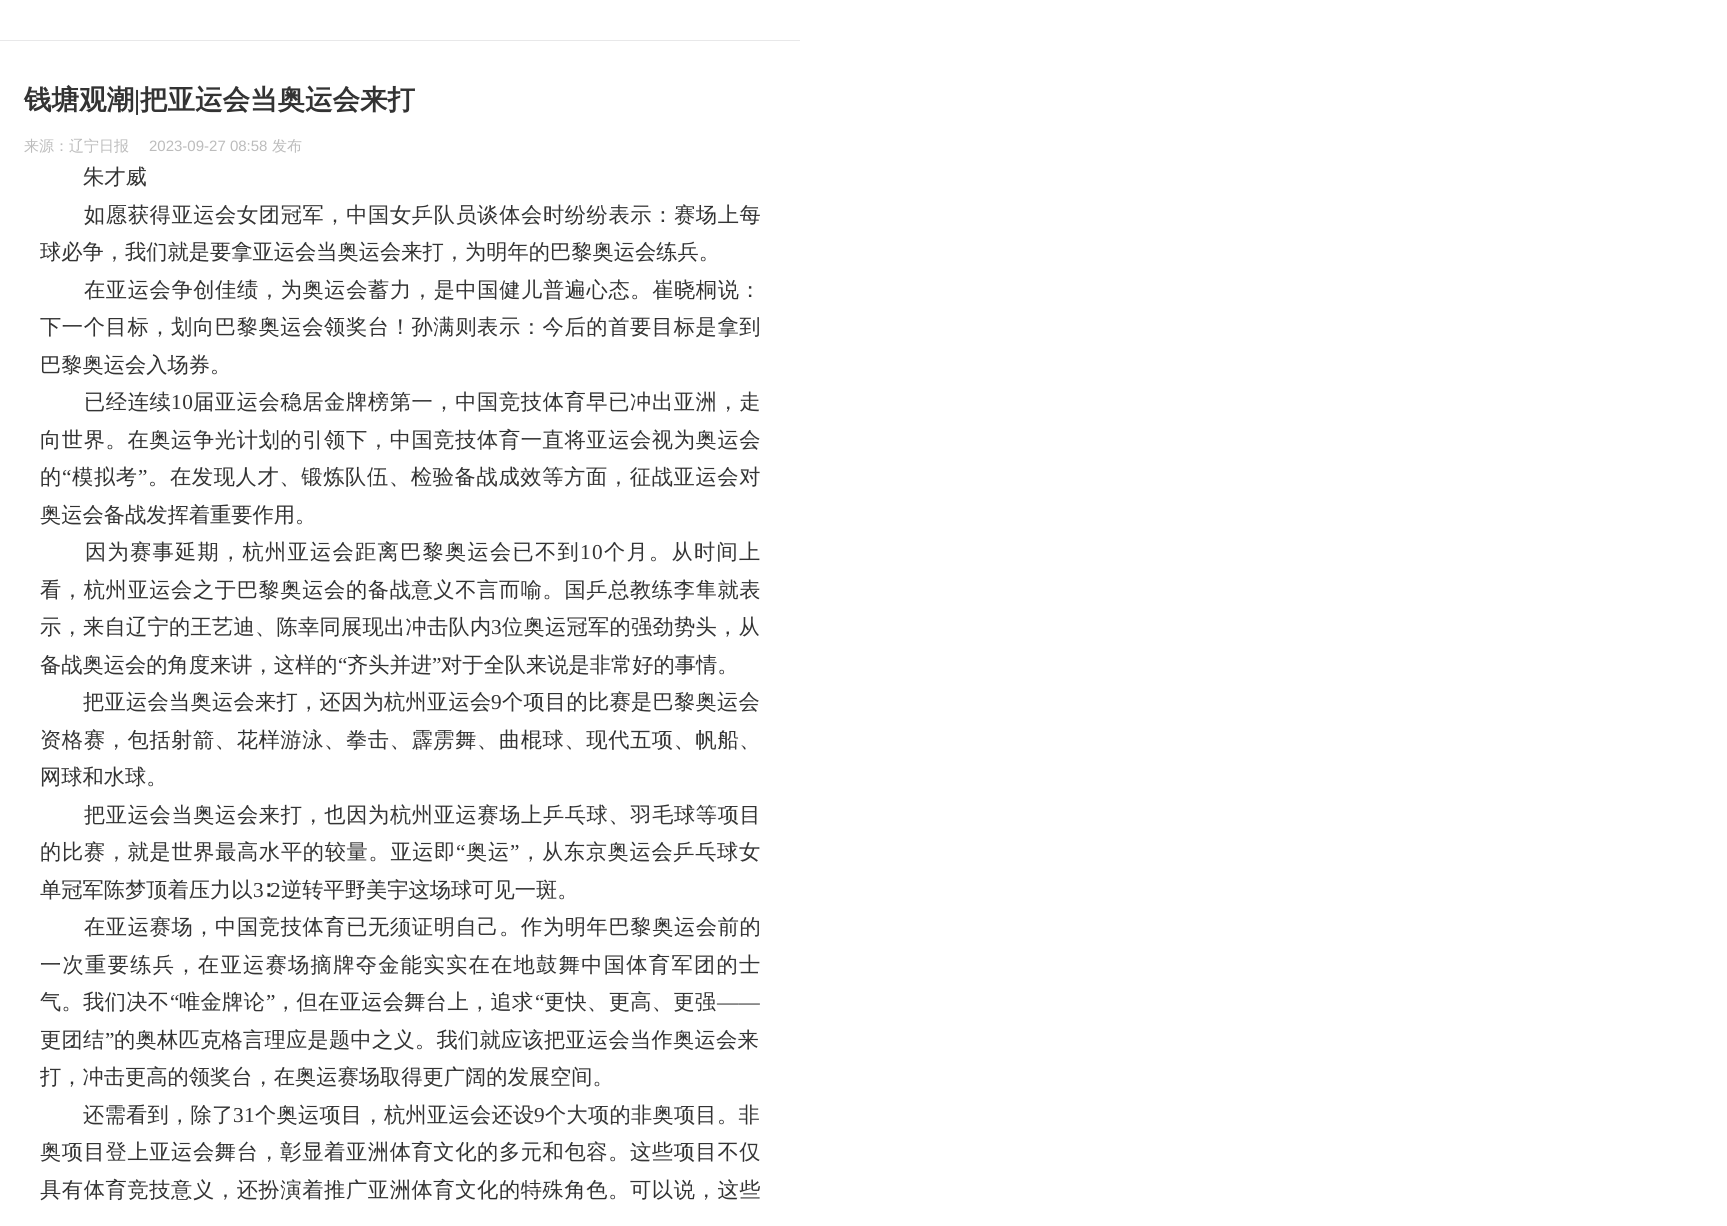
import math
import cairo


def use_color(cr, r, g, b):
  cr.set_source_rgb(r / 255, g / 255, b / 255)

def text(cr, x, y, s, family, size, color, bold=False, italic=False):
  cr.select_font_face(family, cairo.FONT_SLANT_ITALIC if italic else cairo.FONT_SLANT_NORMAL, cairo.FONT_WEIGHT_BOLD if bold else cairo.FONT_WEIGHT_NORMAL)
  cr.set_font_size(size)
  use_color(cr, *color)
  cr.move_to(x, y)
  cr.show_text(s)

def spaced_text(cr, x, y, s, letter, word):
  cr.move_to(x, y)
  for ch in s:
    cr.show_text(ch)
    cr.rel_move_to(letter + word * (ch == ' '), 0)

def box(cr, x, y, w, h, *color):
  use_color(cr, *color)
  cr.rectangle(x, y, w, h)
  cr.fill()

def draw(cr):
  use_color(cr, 255, 255, 255)
  cr.paint()
  box(cr, 0, 40, 800, 1, 232, 232, 233)
  text(cr, 24, 109, "钱塘观潮", "WenQuanYi Zen Hei", 27.5, (51, 51, 51), bold=True)
  text(cr, 134, 109, "|", "Liberation Serif", 27.5, (51, 51, 51), bold=True)
  text(cr, 140, 109, "把亚运会当奥运会来打", "WenQuanYi Zen Hei", 27.5, (51, 51, 51), bold=True)
  text(cr, 24, 151, "来源：辽宁日报", "WenQuanYi Zen Hei Medium", 15, (188, 188, 188))
  text(cr, 149, 151, "2023-09-27 08:58", "Liberation Sans", 15, (188, 188, 188))
  text(cr, 272, 151, "发布", "WenQuanYi Zen Hei Medium", 15, (188, 188, 188))
  text(cr, 83, 184, "朱才威", "WenQuanYi Zen Hei Medium", 21.25, (51, 51, 51))
  spaced_text(cr, 84, 222, "如愿获得亚运会女团冠军，中国女乒队员谈体会时纷纷表示：赛场上每", 0.6, 0)
  text(cr, 40, 259, "球必争，我们就是要拿亚运会当奥运会来打，为明年的巴黎奥运会练兵。", "WenQuanYi Zen Hei Medium", 21.25, (51, 51, 51))
  spaced_text(cr, 84, 297, "在亚运会争创佳绩，为奥运会蓄力，是中国健儿普遍心态。崔晓桐说：", 0.6, 0)
  spaced_text(cr, 40, 334, "下一个目标，划向巴黎奥运会领奖台！孙满则表示：今后的首要目标是拿到", 0.6, 0)
  text(cr, 40, 372, "巴黎奥运会入场券。", "WenQuanYi Zen Hei Medium", 21.25, (51, 51, 51))
  spaced_text(cr, 84, 409, "已经连续", 0.6, 0)
  cr.select_font_face("Liberation Serif")
  spaced_text(cr, 171, 409, "10", 0.6, 0)
  cr.select_font_face("WenQuanYi Zen Hei Medium")
  spaced_text(cr, 193, 409, "届亚运会稳居金牌榜第一，中国竞技体育早已冲出亚洲，走", 0.6, 0)
  spaced_text(cr, 40, 447, "向世界。在奥运争光计划的引领下，中国竞技体育一直将亚运会视为奥运会", 0.6, 0)
  spaced_text(cr, 40, 484, "的", 0.65, 0)
  cr.select_font_face("Liberation Serif")
  spaced_text(cr, 62, 484, "“", 0.65, 0)
  cr.select_font_face("WenQuanYi Zen Hei Medium")
  spaced_text(cr, 72, 484, "模拟考", 0.65, 0)
  cr.select_font_face("Liberation Serif")
  spaced_text(cr, 138, 484, "”", 0.65, 0)
  cr.select_font_face("WenQuanYi Zen Hei Medium")
  spaced_text(cr, 148, 484, "。在发现人才、锻炼队伍、检验备战成效等方面，征战亚运会对", 0.65, 0)
  text(cr, 40, 522, "奥运会备战发挥着重要作用。", "WenQuanYi Zen Hei Medium", 21.25, (51, 51, 51))
  spaced_text(cr, 85, 559, "因为赛事延期，杭州亚运会距离巴黎奥运会已不到", 1.25, 0)
  cr.select_font_face("Liberation Serif")
  spaced_text(cr, 580, 559, "10", 1.25, 0)
  cr.select_font_face("WenQuanYi Zen Hei Medium")
  spaced_text(cr, 604, 559, "个月。从时间上", 1.25, 0)
  spaced_text(cr, 40, 597, "看，杭州亚运会之于巴黎奥运会的备战意义不言而喻。国乒总教练李隼就表", 0.6, 0)
  spaced_text(cr, 40, 634, "示，来自辽宁的王艺迪、陈幸同展现出冲击队内", 0.25, 0)
  cr.select_font_face("Liberation Serif")
  spaced_text(cr, 491, 634, "3", 0.25, 0)
  cr.select_font_face("WenQuanYi Zen Hei Medium")
  spaced_text(cr, 502, 634, "位奥运冠军的强劲势头，从", 0.25, 0)
  text(cr, 40, 672, "备战奥运会的角度来讲，这样的", "WenQuanYi Zen Hei Medium", 21.25, (51, 51, 51))
  text(cr, 338, 672, "“", "Liberation Serif", 21.25, (51, 51, 51))
  text(cr, 347, 672, "齐头并进", "WenQuanYi Zen Hei Medium", 21.25, (51, 51, 51))
  text(cr, 432, 672, "”", "Liberation Serif", 21.25, (51, 51, 51))
  text(cr, 441, 672, "对于全队来说是非常好的事情。", "WenQuanYi Zen Hei Medium", 21.25, (51, 51, 51))
  spaced_text(cr, 83, 709, "把亚运会当奥运会来打，还因为杭州亚运会", 0.25, 0)
  cr.select_font_face("Liberation Serif")
  spaced_text(cr, 491, 709, "9", 0.25, 0)
  cr.select_font_face("WenQuanYi Zen Hei Medium")
  spaced_text(cr, 502, 709, "个项目的比赛是巴黎奥运会", 0.25, 0)
  spaced_text(cr, 40, 747, "资格赛，包括射箭、花样游泳、拳击、霹雳舞、曲棍球、现代五项、帆船、", 0.6, 0)
  text(cr, 40, 784, "网球和水球。", "WenQuanYi Zen Hei Medium", 21.25, (51, 51, 51))
  spaced_text(cr, 84, 822, "把亚运会当奥运会来打，也因为杭州亚运赛场上乒乓球、羽毛球等项目", 0.6, 0)
  spaced_text(cr, 40, 859, "的比赛，就是世界最高水平的较量。亚运即", 0.65, 0)
  cr.select_font_face("Liberation Serif")
  spaced_text(cr, 456, 859, "“", 0.65, 0)
  cr.select_font_face("WenQuanYi Zen Hei Medium")
  spaced_text(cr, 466, 859, "奥运", 0.65, 0)
  cr.select_font_face("Liberation Serif")
  spaced_text(cr, 510, 859, "”", 0.65, 0)
  cr.select_font_face("WenQuanYi Zen Hei Medium")
  spaced_text(cr, 520, 859, "，从东京奥运会乒乓球女", 0.65, 0)
  text(cr, 40, 897, "单冠军陈梦顶着压力以", "WenQuanYi Zen Hei Medium", 21.25, (51, 51, 51))
  text(cr, 253, 897, "3", "Liberation Serif", 21.25, (51, 51, 51))
  text(cr, 263, 897, "∶", "WenQuanYi Zen Hei Medium", 21.25, (51, 51, 51))
  text(cr, 270, 897, "2", "Liberation Serif", 21.25, (51, 51, 51))
  text(cr, 281, 897, "逆转平野美宇这场球可见一斑。", "WenQuanYi Zen Hei Medium", 21.25, (51, 51, 51))
  spaced_text(cr, 84, 934, "在亚运赛场，中国竞技体育已无须证明自己。作为明年巴黎奥运会前的", 0.6, 0)
  spaced_text(cr, 40, 972, "一次重要练兵，在亚运赛场摘牌夺金能实实在在地鼓舞中国体育军团的士", 1.3, 0)
  spaced_text(cr, 40, 1009, "气。我们决不", 0.3, 0)
  cr.select_font_face("Liberation Serif")
  spaced_text(cr, 170, 1009, "“", 0.3, 0)
  cr.select_font_face("WenQuanYi Zen Hei Medium")
  spaced_text(cr, 179, 1009, "唯金牌论", 0.3, 0)
  cr.select_font_face("Liberation Serif")
  spaced_text(cr, 266, 1009, "”", 0.3, 0)
  cr.select_font_face("WenQuanYi Zen Hei Medium")
  spaced_text(cr, 275, 1009, "，但在亚运会舞台上，追求", 0.3, 0)
  cr.select_font_face("Liberation Serif")
  spaced_text(cr, 535, 1009, "“", 0.3, 0)
  cr.select_font_face("WenQuanYi Zen Hei Medium")
  spaced_text(cr, 544, 1009, "更快、更高、更强", 0.3, 0)
  cr.select_font_face("Liberation Serif")
  spaced_text(cr, 717, 1009, "——", 0.3, 0)
  cr.select_font_face("WenQuanYi Zen Hei Medium")
  spaced_text(cr, 40, 1047, "更团结", 0.25, 0)
  cr.select_font_face("Liberation Serif")
  spaced_text(cr, 105, 1047, "”", 0.25, 0)
  cr.select_font_face("WenQuanYi Zen Hei Medium")
  spaced_text(cr, 114, 1047, "的奥林匹克格言理应是题中之义。我们就应该把亚运会当作奥运会来", 0.25, 0)
  text(cr, 40, 1084, "打，冲击更高的领奖台，在奥运赛场取得更广阔的发展空间。", "WenQuanYi Zen Hei Medium", 21.25, (51, 51, 51))
  spaced_text(cr, 83, 1122, "还需看到，除了", 0.25, 0)
  cr.select_font_face("Liberation Serif")
  spaced_text(cr, 233, 1122, "31", 0.25, 0)
  cr.select_font_face("WenQuanYi Zen Hei Medium")
  spaced_text(cr, 255, 1122, "个奥运项目，杭州亚运会还设", 0.25, 0)
  cr.select_font_face("Liberation Serif")
  spaced_text(cr, 534, 1122, "9", 0.25, 0)
  cr.select_font_face("WenQuanYi Zen Hei Medium")
  spaced_text(cr, 545, 1122, "个大项的非奥项目。非", 0.25, 0)
  spaced_text(cr, 40, 1159, "奥项目登上亚运会舞台，彰显着亚洲体育文化的多元和包容。这些项目不仅", 0.6, 0)
  spaced_text(cr, 40, 1197, "具有体育竞技意义，还扮演着推广亚洲体育文化的特殊角色。可以说，这些", 0.6, 0)


surface = cairo.ImageSurface(cairo.FORMAT_RGB24, 1727, 1226)
cr = cairo.Context(surface)
options = cairo.FontOptions()
options.set_hint_metrics(cairo.HINT_METRICS_OFF)
options.set_hint_style(cairo.HINT_STYLE_NONE)
cr.set_font_options(options)
cr.set_miter_limit(4)
draw(cr)
surface.write_to_png("out.png")
